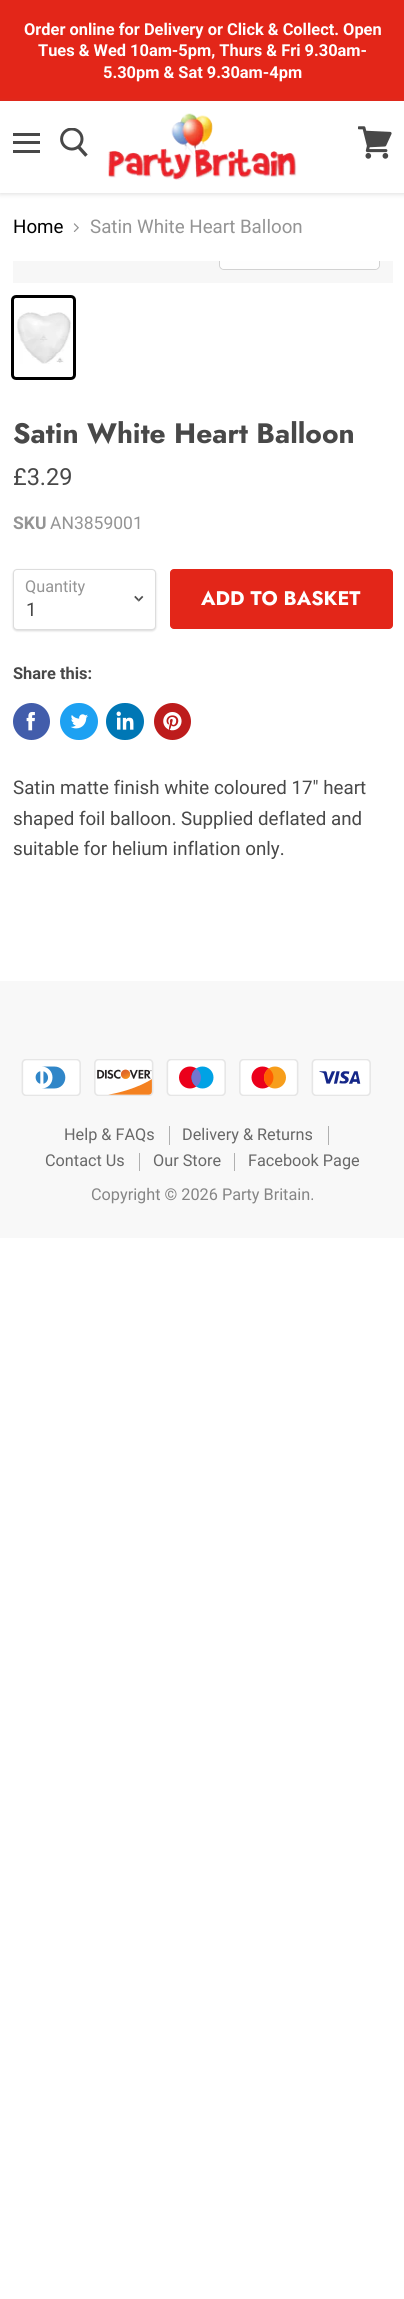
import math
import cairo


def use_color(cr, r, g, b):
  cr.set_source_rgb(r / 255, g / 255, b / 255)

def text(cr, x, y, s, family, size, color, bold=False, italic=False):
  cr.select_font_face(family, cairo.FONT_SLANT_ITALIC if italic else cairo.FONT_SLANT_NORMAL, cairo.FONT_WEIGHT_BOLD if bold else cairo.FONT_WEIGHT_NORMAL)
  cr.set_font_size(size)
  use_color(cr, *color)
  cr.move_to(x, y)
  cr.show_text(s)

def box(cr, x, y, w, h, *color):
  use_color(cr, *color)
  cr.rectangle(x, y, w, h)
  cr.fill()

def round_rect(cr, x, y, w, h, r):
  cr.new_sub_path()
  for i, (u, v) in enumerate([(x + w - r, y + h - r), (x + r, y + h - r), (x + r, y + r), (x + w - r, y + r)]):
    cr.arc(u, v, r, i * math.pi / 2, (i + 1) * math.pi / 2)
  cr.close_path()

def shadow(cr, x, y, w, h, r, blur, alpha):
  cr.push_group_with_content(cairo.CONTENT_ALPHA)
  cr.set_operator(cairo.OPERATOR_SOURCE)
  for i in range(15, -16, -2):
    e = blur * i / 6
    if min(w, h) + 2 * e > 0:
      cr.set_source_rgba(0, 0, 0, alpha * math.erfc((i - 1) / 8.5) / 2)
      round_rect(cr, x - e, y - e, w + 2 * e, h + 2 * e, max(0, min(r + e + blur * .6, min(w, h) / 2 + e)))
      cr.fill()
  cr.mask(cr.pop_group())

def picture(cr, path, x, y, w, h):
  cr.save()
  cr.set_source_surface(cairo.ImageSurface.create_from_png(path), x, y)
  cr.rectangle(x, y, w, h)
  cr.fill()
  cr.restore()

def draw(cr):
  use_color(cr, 255, 255, 255)
  cr.paint()
  box(cr, 0, 0, 404, 101, 227, 38, 25)
  use_color(cr, 127, 127, 127)
  shadow(cr, 0, 103, 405, 91, 0, 2.5, 0.25)
  box(cr, 0, 101, 404, 92, 255, 255, 255)
  box(cr, 13, 133, 27, 3, 72, 72, 72)
  box(cr, 13, 141, 27, 3, 72, 72, 72)
  box(cr, 13, 150, 27, 3, 72, 72, 72)
  picture(cr, "img_01.png", 60, 128, 28, 29)
  picture(cr, "img_02.png", 108, 113, 189, 67)
  picture(cr, "img_03.png", 358, 126, 34, 33)
  picture(cr, "img_04.png", 73, 223, 6, 9)
  box(cr, 13, 261, 380, 22, 247, 247, 247)
  cr.save()
  cr.rectangle(13, 261, 380, 22)
  cr.clip()
  round_rect(cr, 219.5, 234.5, 160, 35, 4.5)
  use_color(cr, 210, 210, 210)
  cr.set_line_width(1)
  cr.stroke()
  cr.restore()
  cr.set_source_rgba(1, 1, 1, 0.9)
  cr.new_path()
  cr.move_to(220, 261)
  cr.line_to(379, 261)
  cr.line_to(379, 265)
  cr.curve_to(379, 267, 377, 269, 375, 269)
  cr.line_to(224, 269)
  cr.curve_to(222, 269, 220, 267, 220, 265)
  cr.close_path()
  cr.fill()
  round_rect(cr, 12.5, 296.5, 62, 82, 3.5)
  use_color(cr, 0, 0, 0)
  cr.set_line_width(3)
  cr.stroke()
  picture(cr, "img_05.png", 17, 312, 55, 52)
  use_color(cr, 0, 0, 0)
  shadow(cr, 13, 570, 143, 61, 4, 1, 0.15)
  use_color(cr, 255, 255, 255)
  round_rect(cr, 13.5, 569.5, 142, 60, 3.5)
  cr.fill_preserve()
  use_color(cr, 221, 221, 221)
  cr.set_line_width(1)
  cr.stroke()
  picture(cr, "img_06.png", 134, 595, 10, 7)
  use_color(cr, 227, 38, 25)
  round_rect(cr, 170.5, 569.5, 222, 59, 3.5)
  cr.fill_preserve()
  cr.stroke()
  use_color(cr, 66, 93, 171)
  cr.arc(31.5, 721.5, 18.5, 0, 2 * math.pi)
  cr.fill()
  picture(cr, "img_07.png", 26, 711, 9, 20)
  use_color(cr, 29, 161, 242)
  round_rect(cr, 60, 703, 38, 37, 18.5)
  cr.fill()
  picture(cr, "img_08.png", 70, 714, 18, 15)
  use_color(cr, 0, 119, 181)
  round_rect(cr, 106, 703, 38, 37, 18.5)
  cr.fill()
  picture(cr, "img_09.png", 116, 711, 18, 19)
  use_color(cr, 189, 28, 28)
  cr.arc(172.5, 721.5, 18.5, 0, 2 * math.pi)
  cr.fill()
  picture(cr, "img_10.png", 163, 712, 19, 19)
  box(cr, 0, 981, 404, 257, 248, 248, 248)
  picture(cr, "img_11.png", 21, 1059, 60, 37)
  picture(cr, "img_12.png", 94, 1059, 60, 37)
  picture(cr, "img_13.png", 166, 1059, 60, 37)
  picture(cr, "img_14.png", 239, 1059, 60, 37)
  picture(cr, "img_15.png", 311, 1059, 60, 37)
  box(cr, 169, 1126, 1, 19, 176, 176, 176)
  box(cr, 328, 1126, 1, 19, 176, 176, 176)
  box(cr, 139, 1153, 1, 18, 176, 176, 176)
  box(cr, 234, 1153, 1, 18, 176, 176, 176)
  text(cr, 24, 35, "Order online for Delivery or Click & Collect. Open", "Roboto", 16.4, (255, 255, 255), bold=True)
  text(cr, 38, 56, "Tues & Wed 10am-5pm, Thurs & Fri 9.30am-", "Roboto", 16.4, (255, 255, 255), bold=True)
  text(cr, 103, 78, "5.30pm & Sat 9.30am-4pm", "Roboto", 16.4, (255, 255, 255), bold=True)
  text(cr, 13, 233, "Home", "Roboto", 18.75, (0, 0, 0))
  text(cr, 90, 233, "Satin White Heart Balloon", "Roboto", 18.75, (148, 148, 148))
  text(cr, 13, 443, "Satin White Heart Balloon", "Jost", 28.1, (72, 72, 72), bold=True)
  text(cr, 13, 485, "£3.29", "Roboto", 23.5, (72, 72, 72))
  text(cr, 13, 529, "SKU", "Roboto", 17.5, (148, 148, 148), bold=True)
  text(cr, 50, 529, "AN3859001", "Roboto", 17.5, (148, 148, 148))
  text(cr, 25, 592, "Quantity", "Roboto", 16.25, (148, 148, 148))
  text(cr, 26, 616, "1", "Roboto", 18.75, (72, 72, 72))
  text(cr, 201, 605, "ADD TO BASKET", "Jost", 19.75, (255, 255, 255), bold=True)
  text(cr, 13, 679, "Share this:", "Roboto", 16.4, (72, 72, 72), bold=True)
  text(cr, 13, 794, "Satin matte finish white coloured 17\" heart", "Roboto", 18.75, (72, 72, 72))
  text(cr, 13, 825, "shaped foil balloon. Supplied deflated and", "Roboto", 18.75, (72, 72, 72))
  text(cr, 13, 855, "suitable for helium inflation only.", "Roboto", 18.75, (72, 72, 72))
  text(cr, 64, 1140, "Help & FAQs", "Roboto", 16.25, (104, 104, 104))
  text(cr, 182, 1140, "Delivery & Returns", "Roboto", 16.25, (104, 104, 104))
  text(cr, 45, 1166, "Contact Us", "Roboto", 16.25, (104, 104, 104))
  text(cr, 153, 1166, "Our Store", "Roboto", 16.25, (104, 104, 104))
  text(cr, 248, 1166, "Facebook Page", "Roboto", 16.25, (104, 104, 104))
  text(cr, 91, 1200, "Copyright © 2026 Party Britain.", "Roboto", 16.25, (133, 133, 133))


surface = cairo.ImageSurface(cairo.FORMAT_RGB24, 404, 2299)
cr = cairo.Context(surface)
options = cairo.FontOptions()
options.set_hint_metrics(cairo.HINT_METRICS_OFF)
options.set_hint_style(cairo.HINT_STYLE_NONE)
cr.set_font_options(options)
cr.set_miter_limit(4)
draw(cr)
surface.write_to_png("out.png")
